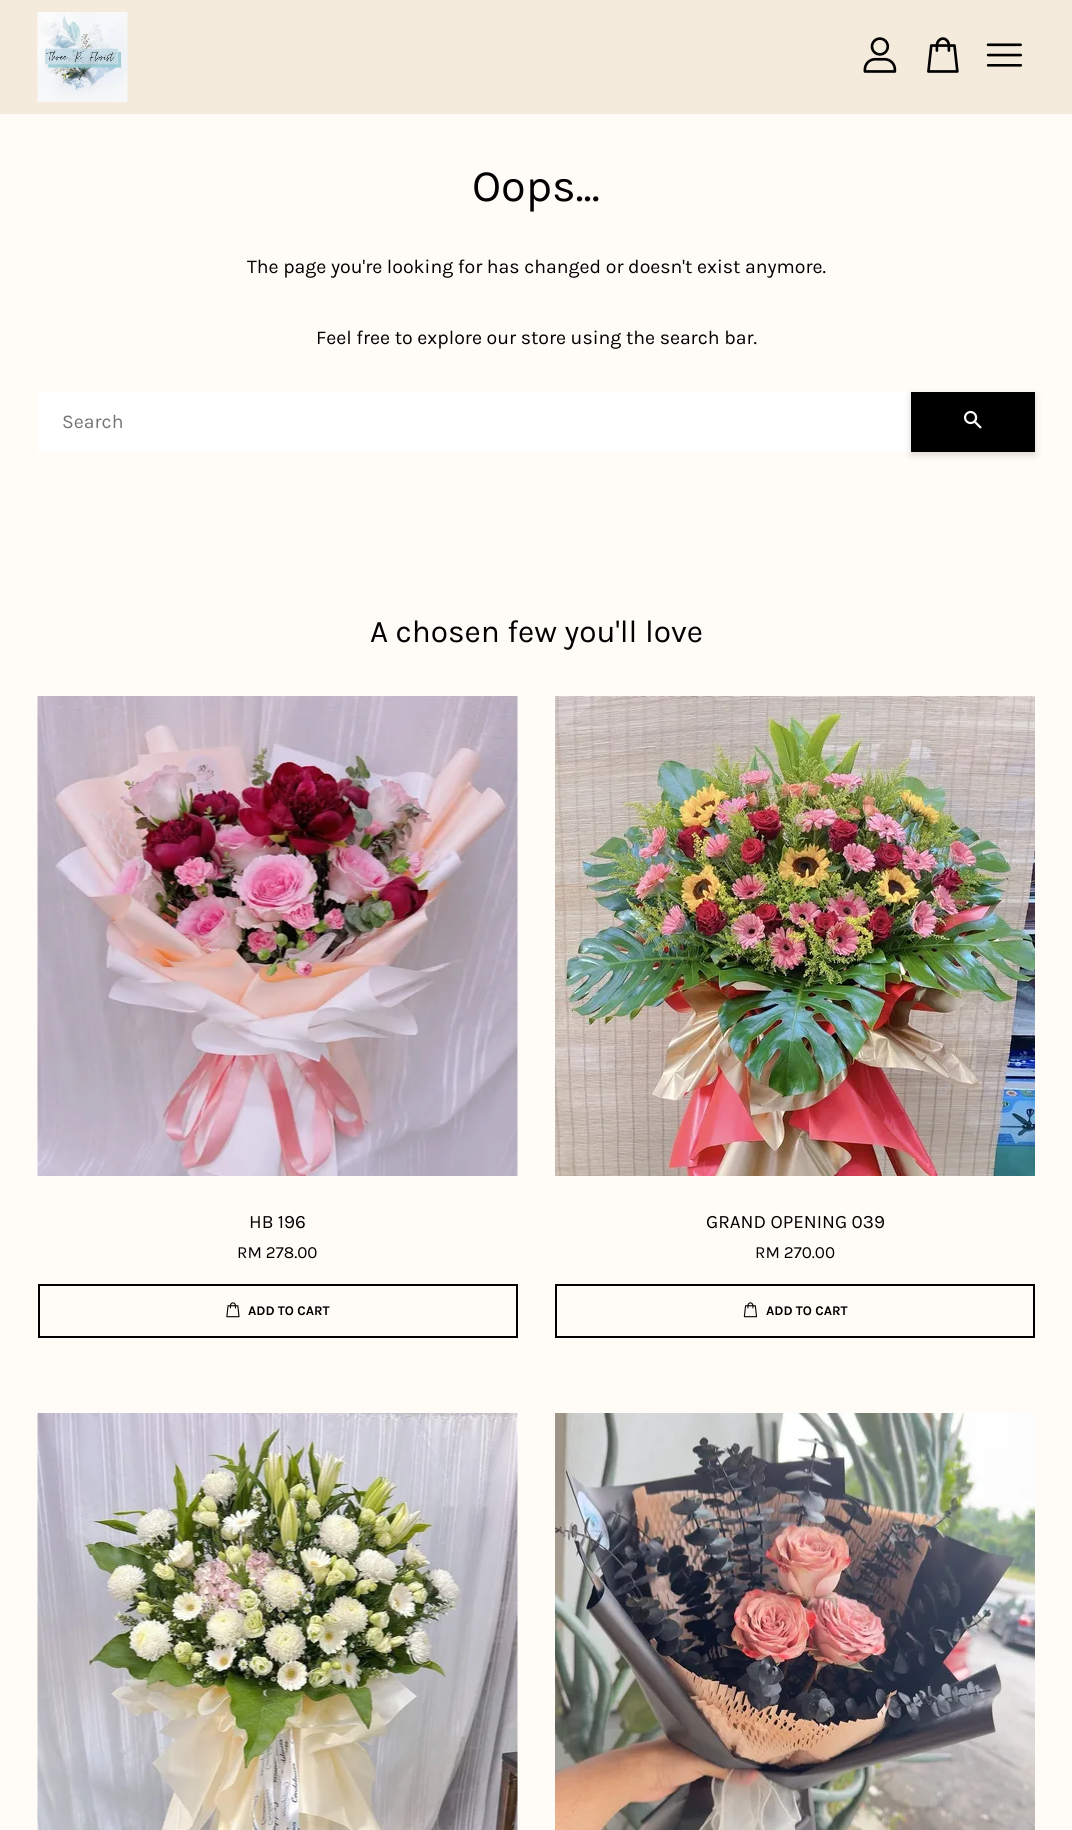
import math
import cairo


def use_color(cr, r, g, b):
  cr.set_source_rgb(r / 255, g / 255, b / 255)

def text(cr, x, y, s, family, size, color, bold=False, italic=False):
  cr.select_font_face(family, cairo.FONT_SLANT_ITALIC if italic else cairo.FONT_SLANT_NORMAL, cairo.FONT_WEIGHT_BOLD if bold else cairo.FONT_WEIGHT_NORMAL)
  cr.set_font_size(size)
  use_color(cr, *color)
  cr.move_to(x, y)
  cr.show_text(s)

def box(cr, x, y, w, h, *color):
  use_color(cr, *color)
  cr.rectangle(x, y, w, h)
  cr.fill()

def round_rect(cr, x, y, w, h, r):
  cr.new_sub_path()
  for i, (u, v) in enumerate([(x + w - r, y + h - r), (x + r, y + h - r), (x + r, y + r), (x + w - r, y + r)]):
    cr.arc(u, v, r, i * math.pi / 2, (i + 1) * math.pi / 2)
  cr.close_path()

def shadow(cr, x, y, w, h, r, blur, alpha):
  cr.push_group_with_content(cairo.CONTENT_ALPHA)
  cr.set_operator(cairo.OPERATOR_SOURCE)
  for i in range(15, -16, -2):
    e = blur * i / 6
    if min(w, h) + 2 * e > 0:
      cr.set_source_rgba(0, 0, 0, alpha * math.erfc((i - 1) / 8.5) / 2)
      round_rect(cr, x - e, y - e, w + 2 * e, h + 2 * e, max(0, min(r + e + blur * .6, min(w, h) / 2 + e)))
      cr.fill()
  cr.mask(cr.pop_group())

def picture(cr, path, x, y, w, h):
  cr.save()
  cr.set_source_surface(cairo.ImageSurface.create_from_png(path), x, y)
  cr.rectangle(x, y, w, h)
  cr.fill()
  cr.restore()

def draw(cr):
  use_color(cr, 255, 252, 247)
  cr.paint()
  box(cr, 0, 0, 1072, 114, 245, 235, 220)
  picture(cr, "img_01.png", 37, 12, 91, 90)
  picture(cr, "img_02.png", 863, 37, 34, 36)
  picture(cr, "img_03.png", 927, 37, 32, 36)
  picture(cr, "img_04.png", 986, 43, 37, 24)
  box(cr, 38, 392, 873, 60, 255, 255, 255)
  use_color(cr, 0, 0, 0)
  shadow(cr, 911, 395, 124, 60, 0, 4, 0.15)
  box(cr, 911, 392, 124, 60, 0, 0, 0)
  picture(cr, "img_05.png", 964, 410, 18, 19)
  picture(cr, "img_06.png", 37, 696, 481, 480)
  cr.rectangle(39, 1285, 478, 52)
  cr.stroke()
  picture(cr, "img_07.png", 226, 1302, 14, 16)
  picture(cr, "img_08.png", 555, 696, 480, 480)
  cr.rectangle(556, 1285, 478, 52)
  cr.stroke()
  picture(cr, "img_09.png", 743, 1302, 15, 16)
  picture(cr, "img_10.png", 37, 1413, 481, 417)
  picture(cr, "img_11.png", 555, 1413, 480, 417)
  text(cr, 472, 201, "Oops...", "Karla", 45, (0, 0, 0))
  text(cr, 247, 273, "The page you're looking for has changed or doesn't exist anymore.", "Karla", 19.5, (0, 0, 0))
  text(cr, 316, 344, "Feel free to explore our store using the search bar.", "Karla", 19.5, (0, 0, 0))
  text(cr, 62, 428, "Search", "Karla", 19.5, (117, 117, 117))
  text(cr, 370, 642, "A chosen few you'll love", "Karla", 31.5, (0, 0, 0))
  text(cr, 249, 1228, "HB 196", "Karla", 18.9, (0, 0, 0))
  text(cr, 237, 1258, "RM 278.00", "Karla", 17, (0, 0, 0))
  text(cr, 248, 1315, "ADD TO CART", "Karla", 13.25, (0, 0, 0), bold=True)
  text(cr, 706, 1228, "GRAND OPENING 039", "Karla", 18.9, (0, 0, 0))
  text(cr, 755, 1258, "RM 270.00", "Karla", 17, (0, 0, 0))
  text(cr, 766, 1315, "ADD TO CART", "Karla", 13.25, (0, 0, 0), bold=True)


surface = cairo.ImageSurface(cairo.FORMAT_RGB24, 1072, 1830)
cr = cairo.Context(surface)
options = cairo.FontOptions()
options.set_hint_metrics(cairo.HINT_METRICS_OFF)
options.set_hint_style(cairo.HINT_STYLE_NONE)
cr.set_font_options(options)
cr.set_miter_limit(4)
draw(cr)
surface.write_to_png("out.png")
